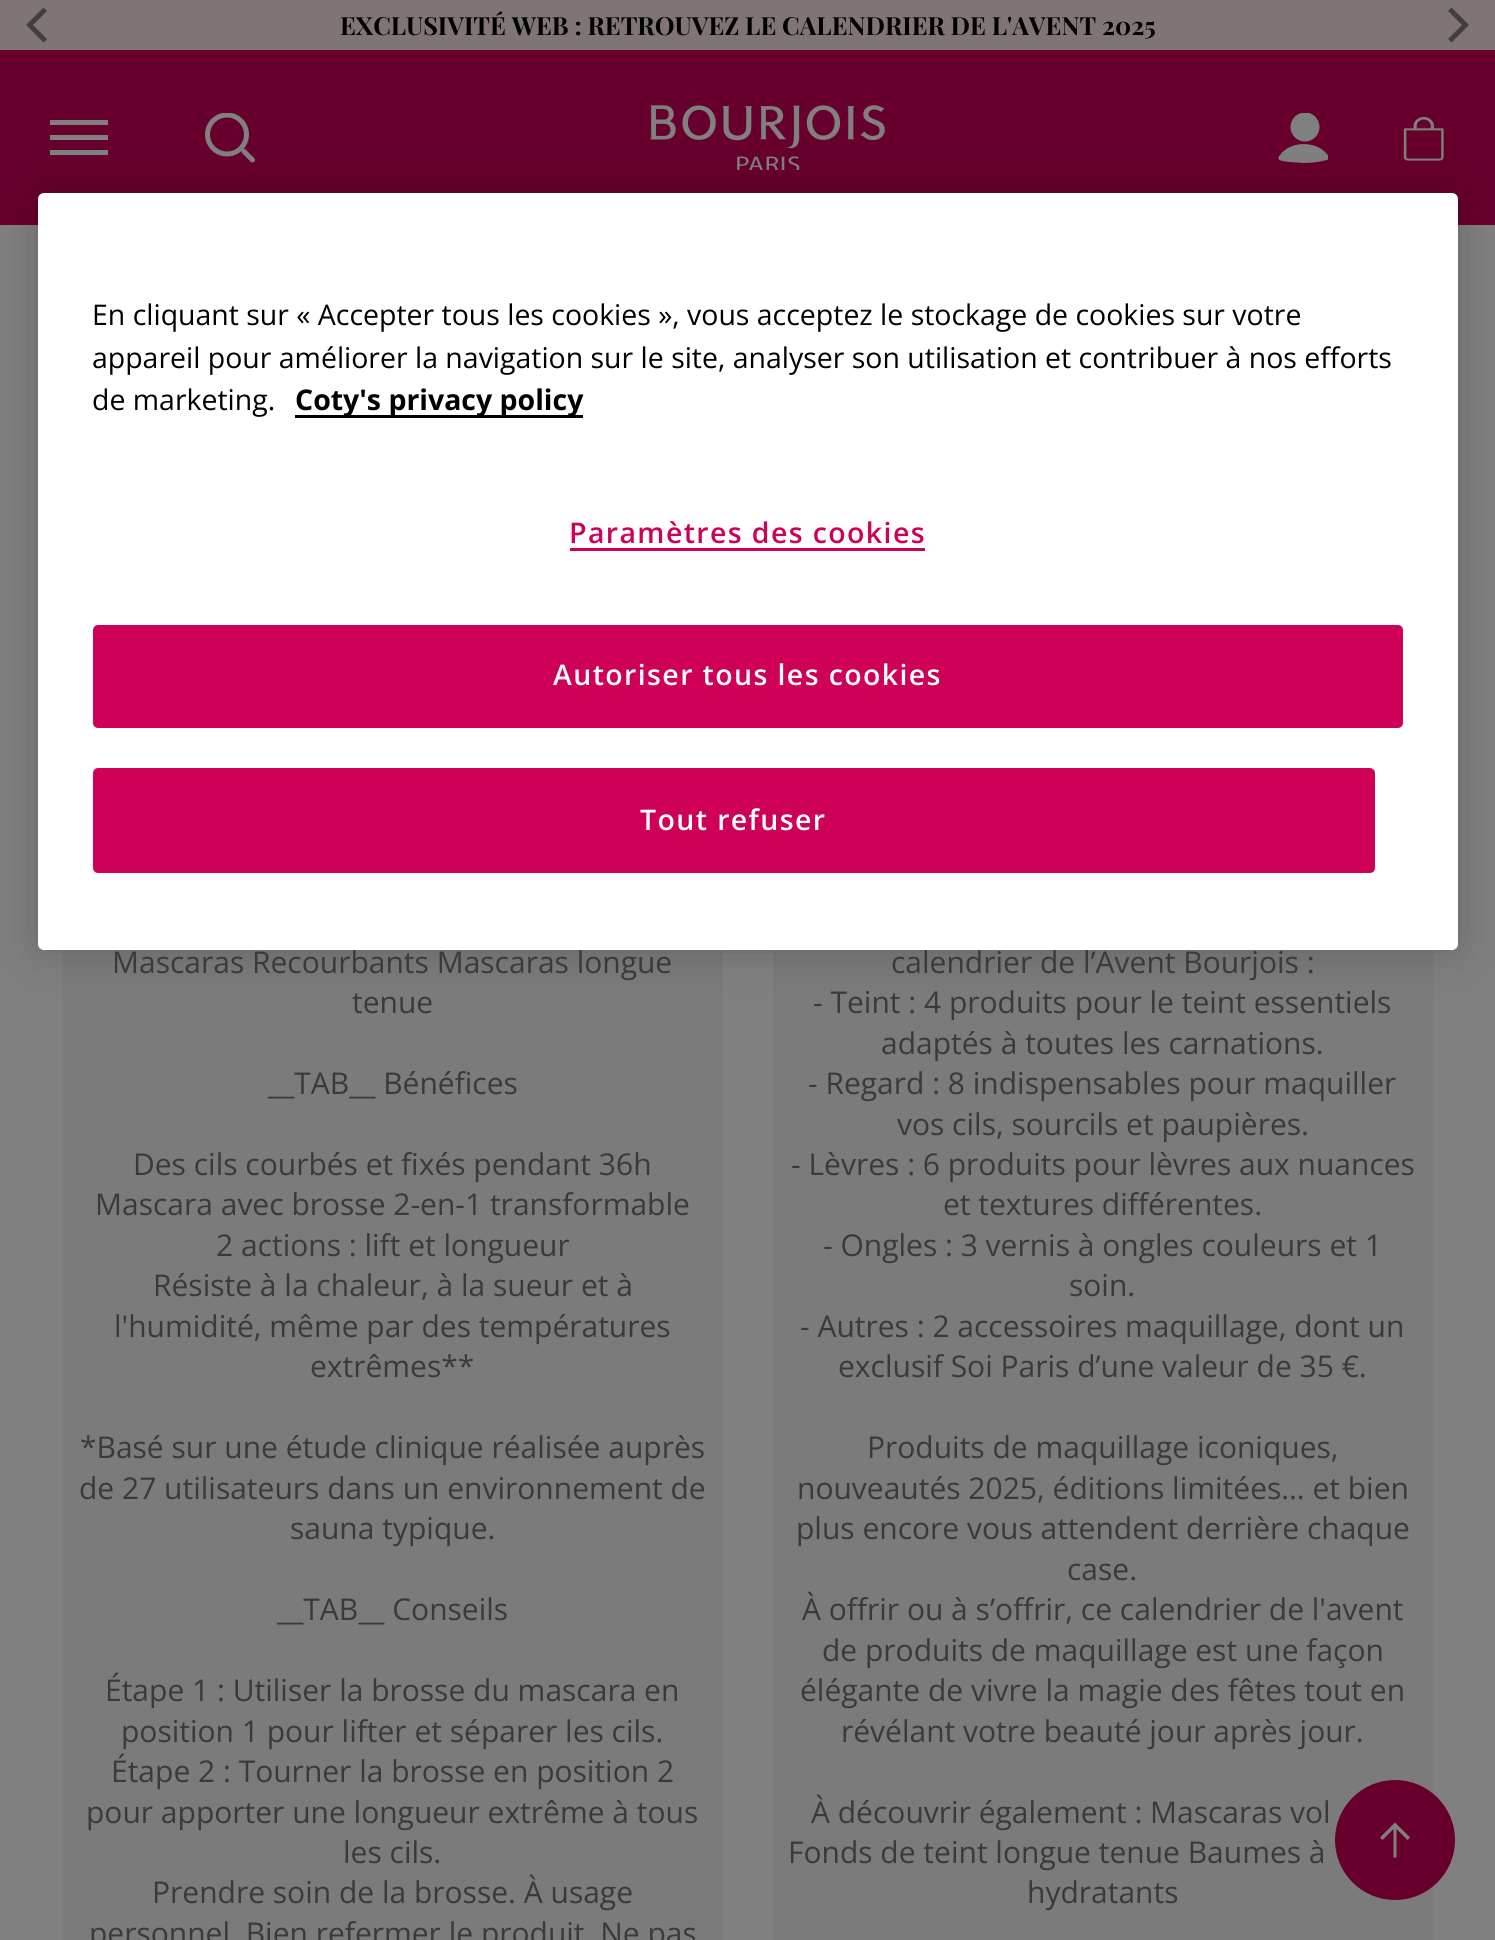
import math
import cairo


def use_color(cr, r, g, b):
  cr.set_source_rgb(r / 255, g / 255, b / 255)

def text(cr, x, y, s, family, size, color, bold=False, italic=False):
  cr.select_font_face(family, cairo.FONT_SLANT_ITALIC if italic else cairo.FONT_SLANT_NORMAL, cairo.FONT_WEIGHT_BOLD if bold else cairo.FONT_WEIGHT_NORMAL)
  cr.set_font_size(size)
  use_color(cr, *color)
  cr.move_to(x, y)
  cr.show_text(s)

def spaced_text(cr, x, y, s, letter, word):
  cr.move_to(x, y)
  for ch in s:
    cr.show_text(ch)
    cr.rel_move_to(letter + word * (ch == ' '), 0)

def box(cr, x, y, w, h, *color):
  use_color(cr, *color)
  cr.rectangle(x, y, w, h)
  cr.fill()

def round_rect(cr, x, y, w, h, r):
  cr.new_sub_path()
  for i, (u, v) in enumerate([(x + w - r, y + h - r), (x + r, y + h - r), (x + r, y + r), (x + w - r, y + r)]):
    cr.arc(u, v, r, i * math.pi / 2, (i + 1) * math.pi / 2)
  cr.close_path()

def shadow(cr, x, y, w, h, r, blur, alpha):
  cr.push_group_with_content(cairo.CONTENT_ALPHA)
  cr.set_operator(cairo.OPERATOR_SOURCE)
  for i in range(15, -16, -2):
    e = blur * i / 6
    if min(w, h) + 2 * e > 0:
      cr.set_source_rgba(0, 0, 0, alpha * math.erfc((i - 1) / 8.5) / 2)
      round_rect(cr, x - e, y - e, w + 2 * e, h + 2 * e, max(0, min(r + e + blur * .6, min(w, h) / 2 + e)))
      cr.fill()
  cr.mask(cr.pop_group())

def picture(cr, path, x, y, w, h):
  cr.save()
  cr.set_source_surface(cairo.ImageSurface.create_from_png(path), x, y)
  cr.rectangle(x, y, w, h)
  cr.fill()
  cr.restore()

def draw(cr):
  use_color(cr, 128, 128, 128)
  cr.paint()
  box(cr, 0, 50, 1495, 175, 103, 0, 44)
  box(cr, 0, 0, 1495, 50, 128, 117, 117)
  use_color(cr, 67, 62, 62)
  cr.new_path()
  cr.move_to(26, 25)
  cr.line_to(43.5, 42.5)
  cr.line_to(47, 39)
  cr.line_to(33, 25)
  cr.line_to(47, 11)
  cr.line_to(43.5, 7.5)
  cr.close_path()
  cr.fill()
  cr.new_path()
  cr.move_to(1469, 25)
  cr.line_to(1451.5, 7.5)
  cr.line_to(1448, 11)
  cr.line_to(1462, 25)
  cr.line_to(1448, 39)
  cr.line_to(1451.5, 42.5)
  cr.close_path()
  cr.fill()
  box(cr, 50, 120, 58, 5, 128, 128, 128)
  box(cr, 50, 135, 58, 5, 128, 128, 128)
  box(cr, 50, 150, 58, 5, 128, 128, 128)
  cr.save()
  cr.rectangle(205, 113, 50, 50)
  cr.clip()
  cr.arc(227, 134.5, 19.5, 0, 2 * math.pi)
  cr.set_line_width(5)
  cr.stroke()
  cr.restore()
  cr.new_path()
  cr.move_to(252.5, 160)
  cr.line_to(244, 151.5)
  cr.set_line_width(5)
  cr.set_line_cap(cairo.LINE_CAP_ROUND)
  cr.stroke()
  picture(cr, "img_01.png", 650, 105, 235, 65)
  cr.save()
  cr.rectangle(1278, 113, 50, 50)
  cr.clip()
  cr.new_path()
  cr.move_to(1327, 160)
  cr.curve_to(1332, 159, 1327, 154, 1325, 152)
  cr.curve_to(1314, 141, 1290, 141, 1280, 155)
  cr.curve_to(1275, 161, 1283, 161, 1289, 162)
  cr.line_to(1304, 163)
  cr.curve_to(1312, 163, 1319, 162, 1327, 160)
  cr.close_path()
  cr.fill()
  cr.arc(1305, 127, 14.5, 0, 2 * math.pi)
  cr.fill()
  cr.restore()
  picture(cr, "img_02.png", 1403, 116, 41, 45)
  box(cr, 63, 950, 660, 990, 123, 123, 123)
  box(cr, 773, 950, 660, 990, 123, 123, 123)
  use_color(cr, 0, 0, 0)
  shadow(cr, 38, 193, 1420, 757, 6, 22.5, 0.2)
  use_color(cr, 255, 255, 255)
  round_rect(cr, 38, 193, 1420, 757, 6)
  cr.fill()
  box(cr, 295, 415, 288, 3, 0, 0, 0)
  box(cr, 570, 548, 355, 3, 206, 0, 88)
  round_rect(cr, 94.5, 626.5, 1307, 100, 3.5)
  cr.fill_preserve()
  cr.set_line_width(3)
  cr.set_line_cap(cairo.LINE_CAP_BUTT)
  cr.stroke()
  round_rect(cr, 94.5, 769.5, 1279, 102, 3.5)
  cr.fill_preserve()
  cr.stroke()
  use_color(cr, 103, 0, 44)
  cr.arc(1395, 1840, 60, 0, 2 * math.pi)
  cr.fill()
  use_color(cr, 128, 128, 128)
  cr.new_path()
  cr.move_to(1396.5, 1829)
  cr.line_to(1407.5, 1840)
  cr.line_to(1410, 1837.5)
  cr.line_to(1395, 1822.5)
  cr.line_to(1380, 1837.5)
  cr.line_to(1382.5, 1840)
  cr.line_to(1393.5, 1829)
  cr.line_to(1393.5, 1857.5)
  cr.line_to(1396.5, 1857.5)
  cr.close_path()
  cr.fill()
  text(cr, 340, 35, "EXCLUSIVITÉ WEB : RETROUVEZ LE CALENDRIER DE L'AVENT 2025", "Playfair Display", 25, (0, 0, 0), bold=True)
  text(cr, 92, 325, "En cliquant sur « Accepter tous les cookies », vous acceptez le stockage de cookies sur votre", "Open Sans", 28.45, (0, 0, 0))
  text(cr, 92, 368, "appareil pour améliorer la navigation sur le site, analyser son utilisation et contribuer à nos efforts", "Open Sans", 28.45, (0, 0, 0))
  text(cr, 92, 410, "de marketing.", "Open Sans", 28.45, (0, 0, 0))
  text(cr, 295, 410, "Coty's privacy policy", "Open Sans", 28.45, (0, 0, 0), bold=True)
  cr.select_font_face("Open Sans SemiBold")
  use_color(cr, 206, 0, 88)
  spaced_text(cr, 569, 543, "Paramètres des cookies", 1.4, 0)
  use_color(cr, 255, 255, 255)
  spaced_text(cr, 553, 685, "Autoriser tous les cookies", 1.4, 0)
  spaced_text(cr, 640, 830, "Tout refuser", 1.4, 0)
  text(cr, 112, 973, "Mascaras Recourbants Mascaras longue", "Open Sans", 30, (58, 58, 58))
  text(cr, 352, 1013, "tenue", "Open Sans", 30, (58, 58, 58))
  text(cr, 268, 1094, "__TAB__ Bénéfices", "Open Sans", 30, (58, 58, 58))
  text(cr, 133, 1175, "Des cils courbés et fixés pendant 36h", "Open Sans", 30, (58, 58, 58))
  text(cr, 95, 1215, "Mascara avec brosse 2-en-1 transformable", "Open Sans", 30, (58, 58, 58))
  text(cr, 216, 1256, "2 actions : lift et longueur", "Open Sans", 30, (58, 58, 58))
  text(cr, 153, 1296, "Résiste à la chaleur, à la sueur et à", "Open Sans", 30, (58, 58, 58))
  text(cr, 114, 1337, "l'humidité, même par des températures", "Open Sans", 30, (58, 58, 58))
  text(cr, 310, 1377, "extrêmes**", "Open Sans", 30, (58, 58, 58))
  text(cr, 80, 1458, "*Basé sur une étude clinique réalisée auprès", "Open Sans", 30, (58, 58, 58))
  text(cr, 79, 1499, "de 27 utilisateurs dans un environnement de", "Open Sans", 30, (58, 58, 58))
  text(cr, 290, 1539, "sauna typique.", "Open Sans", 30, (58, 58, 58))
  text(cr, 277, 1620, "__TAB__ Conseils", "Open Sans", 30, (58, 58, 58))
  text(cr, 105, 1701, "Étape 1 : Utiliser la brosse du mascara en", "Open Sans", 30, (58, 58, 58))
  text(cr, 121, 1742, "position 1 pour lifter et séparer les cils.", "Open Sans", 30, (58, 58, 58))
  text(cr, 111, 1782, "Étape 2 : Tourner la brosse en position 2", "Open Sans", 30, (58, 58, 58))
  text(cr, 86, 1823, "pour apporter une longueur extrême à tous", "Open Sans", 30, (58, 58, 58))
  text(cr, 343, 1863, "les cils.", "Open Sans", 30, (58, 58, 58))
  text(cr, 152, 1903, "Prendre soin de la brosse. À usage", "Open Sans", 30, (58, 58, 58))
  text(cr, 89, 1944, "personnel. Bien refermer le produit. Ne pas", "Open Sans", 30, (58, 58, 58))
  text(cr, 891, 973, "calendrier de l’Avent Bourjois :", "Open Sans", 30, (58, 58, 58))
  text(cr, 813, 1013, "- Teint : 4 produits pour le teint essentiels", "Open Sans", 30, (58, 58, 58))
  text(cr, 881, 1054, "adaptés à toutes les carnations.", "Open Sans", 30, (58, 58, 58))
  text(cr, 808, 1094, "- Regard : 8 indispensables pour maquiller", "Open Sans", 30, (58, 58, 58))
  text(cr, 897, 1135, "vos cils, sourcils et paupières.", "Open Sans", 30, (58, 58, 58))
  text(cr, 791, 1175, "- Lèvres : 6 produits pour lèvres aux nuances", "Open Sans", 30, (58, 58, 58))
  text(cr, 943, 1215, "et textures différentes.", "Open Sans", 30, (58, 58, 58))
  text(cr, 823, 1256, "- Ongles : 3 vernis à ongles couleurs et 1", "Open Sans", 30, (58, 58, 58))
  text(cr, 1069, 1296, "soin.", "Open Sans", 30, (58, 58, 58))
  text(cr, 800, 1337, "- Autres : 2 accessoires maquillage, dont un", "Open Sans", 30, (58, 58, 58))
  text(cr, 838, 1377, "exclusif Soi Paris d’une valeur de 35 €.", "Open Sans", 30, (58, 58, 58))
  text(cr, 867, 1458, "Produits de maquillage iconiques,", "Open Sans", 30, (58, 58, 58))
  text(cr, 797, 1499, "nouveautés 2025, éditions limitées… et bien", "Open Sans", 30, (58, 58, 58))
  text(cr, 796, 1539, "plus encore vous attendent derrière chaque", "Open Sans", 30, (58, 58, 58))
  text(cr, 1067, 1580, "case.", "Open Sans", 30, (58, 58, 58))
  text(cr, 802, 1620, "À offrir ou à s’offrir, ce calendrier de l'avent", "Open Sans", 30, (58, 58, 58))
  text(cr, 822, 1661, "de produits de maquillage est une façon", "Open Sans", 30, (58, 58, 58))
  text(cr, 800, 1701, "élégante de vivre la magie des fêtes tout en", "Open Sans", 30, (58, 58, 58))
  text(cr, 841, 1742, "révélant votre beauté jour après jour.", "Open Sans", 30, (58, 58, 58))
  text(cr, 811, 1823, "À découvrir également : Mascaras vol", "Open Sans", 30, (58, 58, 58))
  text(cr, 788, 1863, "Fonds de teint longue tenue Baumes à", "Open Sans", 30, (58, 58, 58))
  text(cr, 1027, 1903, "hydratants", "Open Sans", 30, (58, 58, 58))


surface = cairo.ImageSurface(cairo.FORMAT_RGB24, 1495, 1940)
cr = cairo.Context(surface)
options = cairo.FontOptions()
options.set_hint_metrics(cairo.HINT_METRICS_OFF)
options.set_hint_style(cairo.HINT_STYLE_NONE)
cr.set_font_options(options)
cr.set_miter_limit(4)
draw(cr)
surface.write_to_png("out.png")
